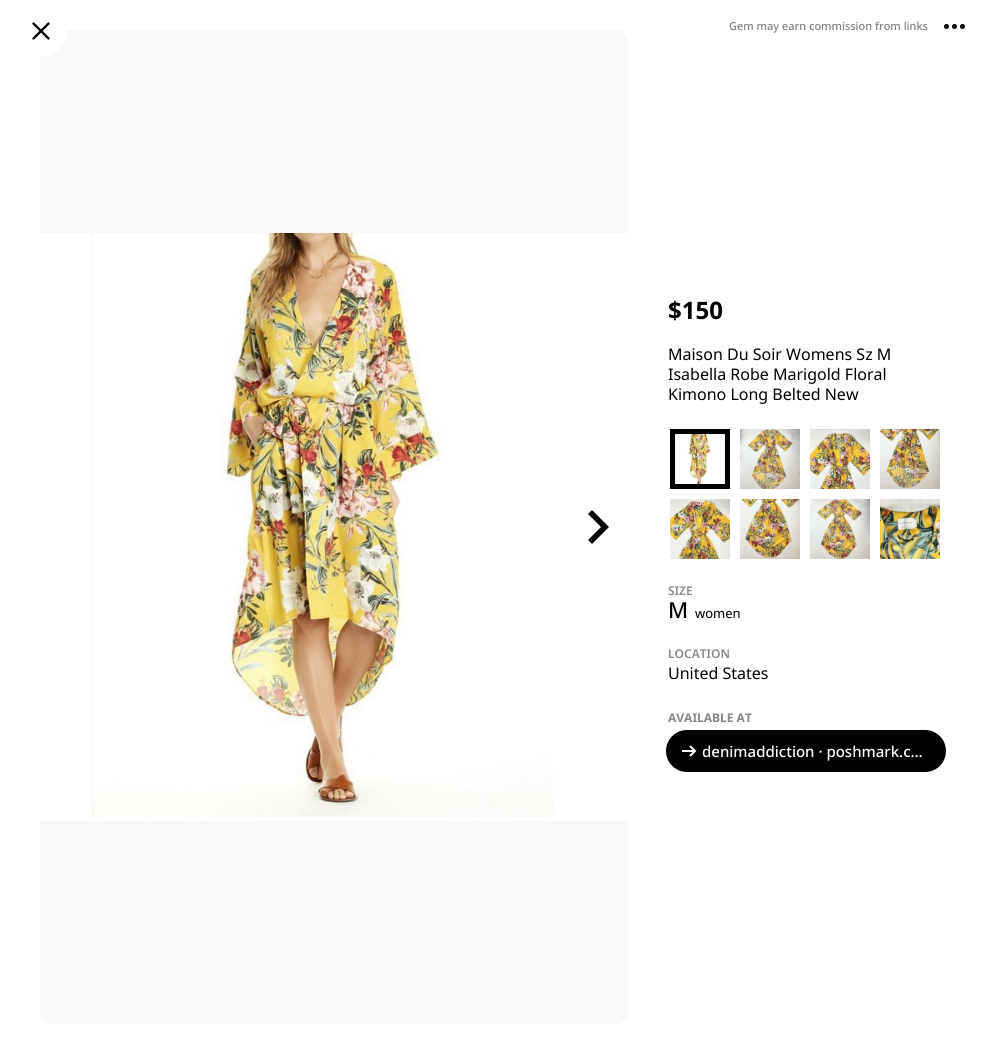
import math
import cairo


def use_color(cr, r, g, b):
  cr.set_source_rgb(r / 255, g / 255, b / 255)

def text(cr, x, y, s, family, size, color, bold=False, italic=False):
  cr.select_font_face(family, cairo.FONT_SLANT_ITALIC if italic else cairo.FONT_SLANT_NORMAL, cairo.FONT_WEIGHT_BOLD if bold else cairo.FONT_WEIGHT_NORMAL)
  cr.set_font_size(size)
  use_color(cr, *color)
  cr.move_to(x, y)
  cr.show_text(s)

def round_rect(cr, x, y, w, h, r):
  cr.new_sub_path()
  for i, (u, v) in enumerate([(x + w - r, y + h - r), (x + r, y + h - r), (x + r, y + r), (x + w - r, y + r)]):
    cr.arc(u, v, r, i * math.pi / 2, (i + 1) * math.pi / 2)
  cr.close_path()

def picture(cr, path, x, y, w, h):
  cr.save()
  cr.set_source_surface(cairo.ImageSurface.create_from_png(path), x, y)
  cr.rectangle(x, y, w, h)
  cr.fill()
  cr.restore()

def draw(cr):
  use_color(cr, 255, 255, 255)
  cr.paint()
  use_color(cr, 248, 248, 248)
  round_rect(cr, 40, 30, 588, 994, 12)
  cr.fill()
  use_color(cr, 255, 255, 255)
  cr.arc(41, 31, 26, 0, 2 * math.pi)
  cr.fill()
  cr.new_path()
  cr.move_to(33.5, 38.5)
  cr.line_to(48.5, 23.5)
  cr.move_to(48.5, 38.5)
  cr.line_to(33.5, 23.5)
  use_color(cr, 0, 0, 0)
  cr.set_line_width(2.3)
  cr.set_line_cap(cairo.LINE_CAP_ROUND)
  cr.stroke()
  cr.arc(946.5, 26.5, 2.5, 0, 2 * math.pi)
  cr.fill()
  cr.arc(954.5, 26.5, 2.5, 0, 2 * math.pi)
  cr.fill()
  cr.arc(962.5, 26.5, 2.5, 0, 2 * math.pi)
  cr.fill()
  picture(cr, "img_01.png", 40, 233, 588, 588)
  cr.new_path()
  cr.move_to(592, 514)
  cr.line_to(605, 527)
  cr.line_to(592, 540)
  cr.set_line_width(5.6)
  cr.set_line_cap(cairo.LINE_CAP_SQUARE)
  cr.stroke()
  picture(cr, "img_02.png", 675, 434, 50, 50)
  cr.rectangle(672.5, 431.5, 55, 55)
  cr.set_line_width(5)
  cr.set_line_cap(cairo.LINE_CAP_BUTT)
  cr.stroke()
  picture(cr, "img_03.png", 740, 429, 60, 60)
  picture(cr, "img_04.png", 810, 429, 60, 60)
  picture(cr, "img_05.png", 880, 429, 60, 60)
  picture(cr, "img_06.png", 670, 499, 60, 60)
  picture(cr, "img_07.png", 740, 499, 60, 60)
  picture(cr, "img_08.png", 810, 499, 60, 60)
  picture(cr, "img_09.png", 880, 499, 60, 60)
  round_rect(cr, 666, 730, 280, 42, 21)
  cr.fill()
  cr.new_path()
  cr.move_to(682, 751)
  cr.line_to(695, 751)
  cr.move_to(690, 746)
  cr.line_to(695, 751)
  cr.line_to(690, 756)
  use_color(cr, 255, 255, 255)
  cr.set_line_width(2)
  cr.stroke()
  text(cr, 729, 30, "Gem may earn commission from links", "Noto Sans Medium", 11, (128, 128, 128))
  text(cr, 668, 319, "$150", "Noto Sans", 24, (0, 0, 0), bold=True)
  text(cr, 668, 360, "Maison Du Soir Womens Sz M", "Noto Sans", 16, (0, 0, 0))
  text(cr, 668, 380, "Isabella Robe Marigold Floral", "Noto Sans", 16, (0, 0, 0))
  text(cr, 668, 400, "Kimono Long Belted New", "Noto Sans", 16, (0, 0, 0))
  text(cr, 668, 595, "SIZE", "Noto Sans SemiBold", 12, (136, 136, 136))
  text(cr, 668, 618, "M", "Noto Sans Medium", 22, (0, 0, 0))
  text(cr, 695, 618, "women", "Noto Sans", 13, (0, 0, 0))
  text(cr, 668, 658, "LOCATION", "Noto Sans SemiBold", 12, (136, 136, 136))
  text(cr, 668, 679, "United States", "Noto Sans", 16, (0, 0, 0))
  text(cr, 668, 722, "AVAILABLE AT", "Noto Sans", 12, (136, 136, 136), bold=True)
  text(cr, 702, 757, "denimaddiction · poshmark.c…", "Noto Sans Medium", 15, (255, 255, 255))


surface = cairo.ImageSurface(cairo.FORMAT_RGB24, 988, 1054)
cr = cairo.Context(surface)
options = cairo.FontOptions()
options.set_hint_metrics(cairo.HINT_METRICS_OFF)
options.set_hint_style(cairo.HINT_STYLE_NONE)
cr.set_font_options(options)
cr.set_miter_limit(4)
draw(cr)
surface.write_to_png("out.png")
